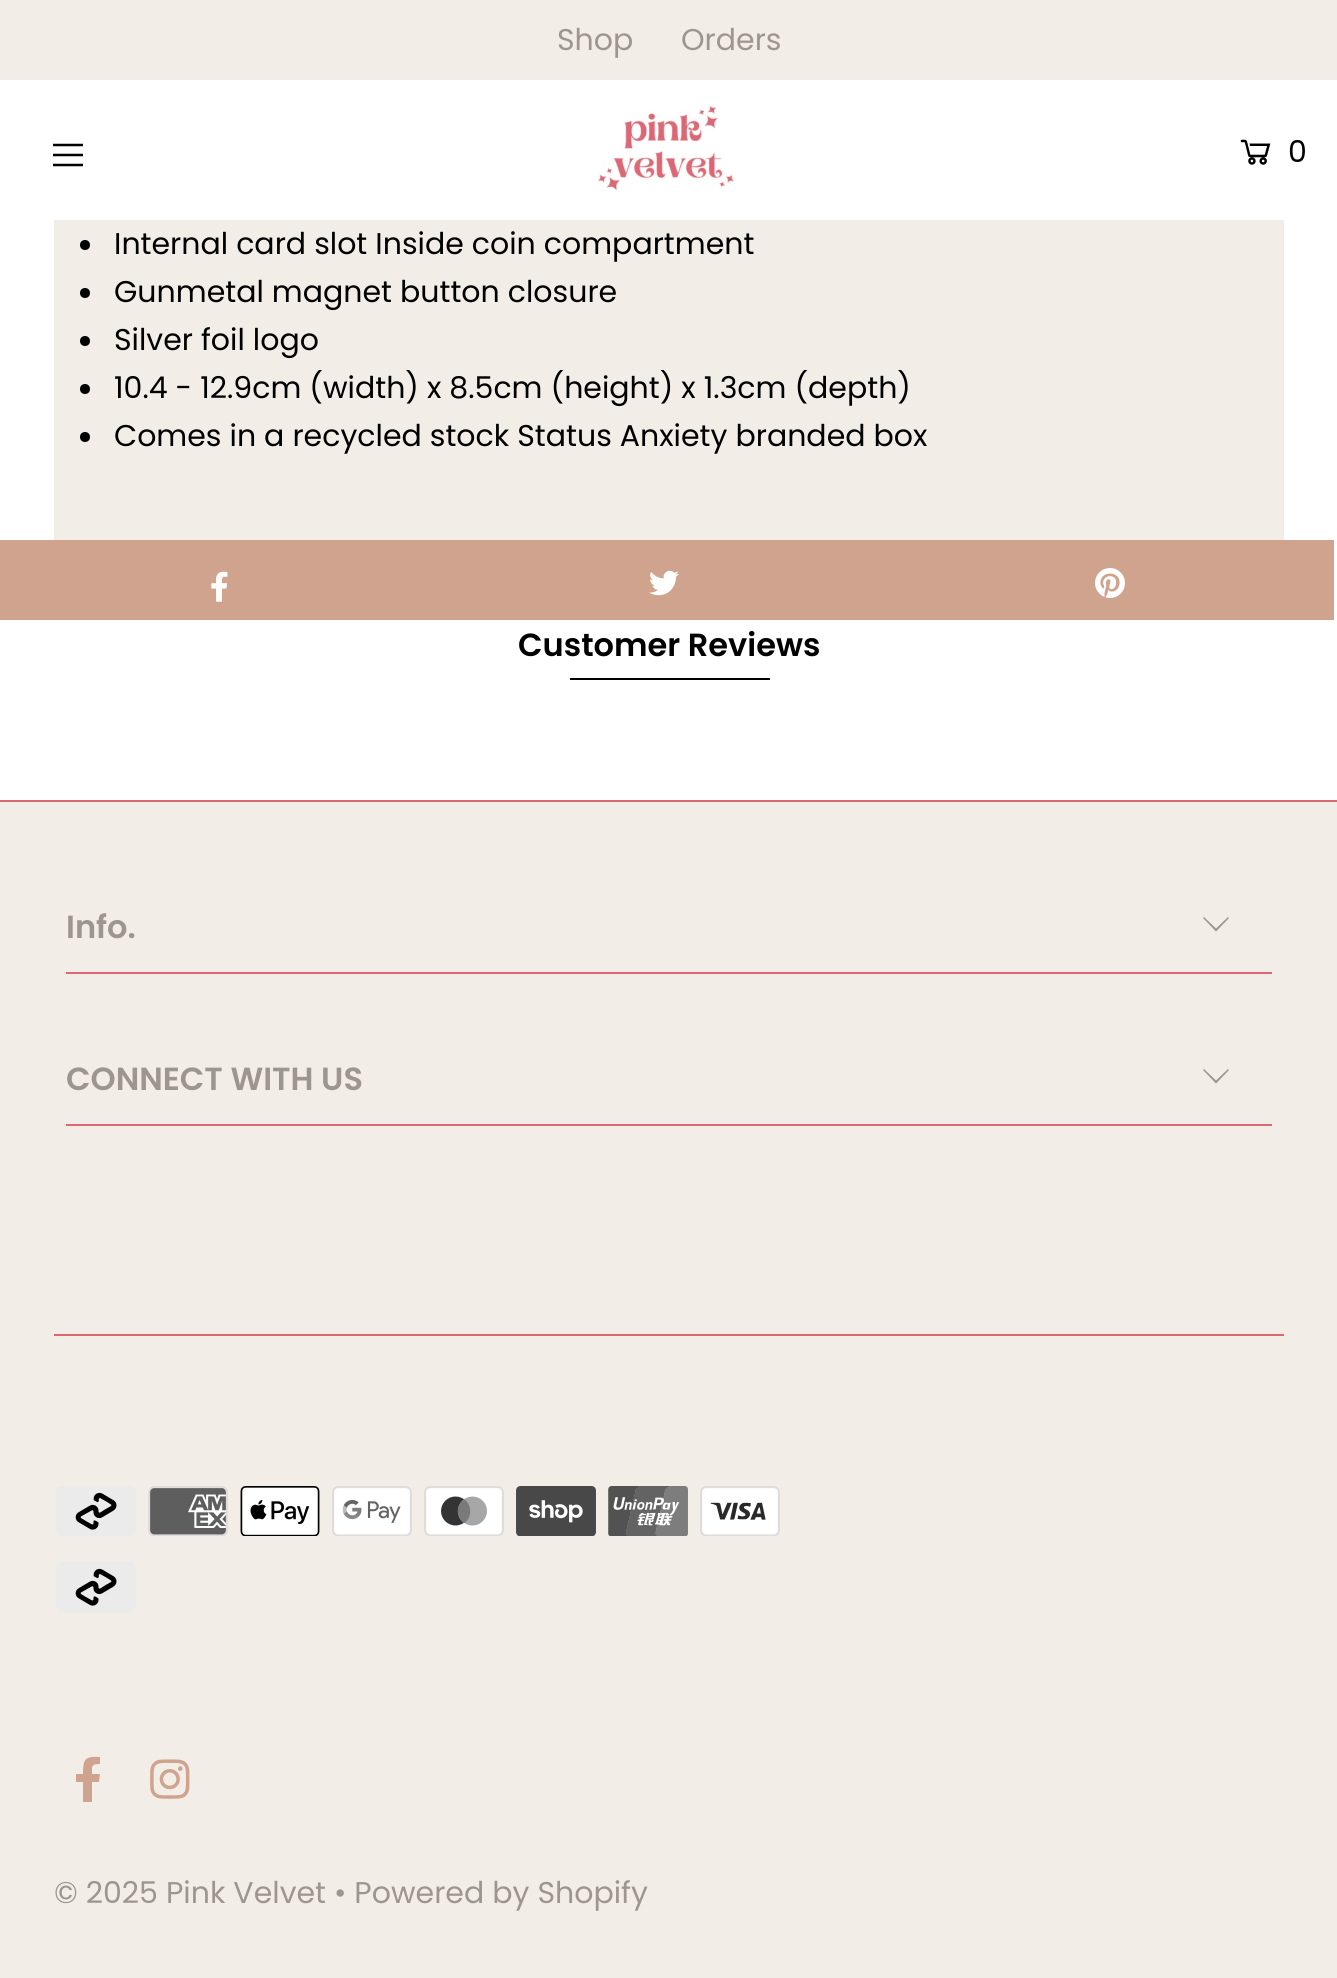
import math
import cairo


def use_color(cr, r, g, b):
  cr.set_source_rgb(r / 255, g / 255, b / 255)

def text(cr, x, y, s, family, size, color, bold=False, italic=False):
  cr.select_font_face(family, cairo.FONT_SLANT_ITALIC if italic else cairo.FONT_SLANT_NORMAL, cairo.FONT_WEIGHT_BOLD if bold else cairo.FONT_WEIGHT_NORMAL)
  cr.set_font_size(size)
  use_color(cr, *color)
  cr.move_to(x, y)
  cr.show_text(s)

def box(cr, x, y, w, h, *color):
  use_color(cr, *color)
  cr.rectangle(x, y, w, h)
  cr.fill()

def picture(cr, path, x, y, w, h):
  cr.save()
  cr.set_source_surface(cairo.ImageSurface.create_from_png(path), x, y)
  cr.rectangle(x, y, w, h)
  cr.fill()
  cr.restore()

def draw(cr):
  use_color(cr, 255, 255, 255)
  cr.paint()
  box(cr, 0, 0, 1337, 80, 243, 237, 232)
  picture(cr, "img_01.png", 53, 143, 30, 24)
  picture(cr, "img_02.png", 598, 105, 137, 86)
  picture(cr, "img_03.png", 1240, 139, 31, 26)
  box(cr, 54, 220, 1230, 320, 243, 237, 232)
  use_color(cr, 0, 0, 0)
  cr.arc(85, 245, 5, 0, 2 * math.pi)
  cr.fill()
  cr.arc(85, 293, 5, 0, 2 * math.pi)
  cr.fill()
  cr.arc(85, 341, 5, 0, 2 * math.pi)
  cr.fill()
  cr.arc(85, 389, 5, 0, 2 * math.pi)
  cr.fill()
  cr.arc(85, 437, 5, 0, 2 * math.pi)
  cr.fill()
  box(cr, 0, 540, 1334, 80, 207, 163, 142)
  picture(cr, "img_04.png", 211, 571, 17, 31)
  picture(cr, "img_05.png", 649, 570, 30, 26)
  picture(cr, "img_06.png", 1095, 568, 30, 30)
  box(cr, 570, 678, 200, 2, 0, 0, 0)
  box(cr, 0, 802, 1337, 1176, 243, 237, 232)
  box(cr, 0, 800, 1337, 2, 220, 104, 116)
  box(cr, 66, 972, 1206, 2, 220, 104, 116)
  use_color(cr, 157, 149, 143)
  cr.new_path()
  cr.move_to(1204, 917)
  cr.line_to(1216, 928.5)
  cr.line_to(1228, 917)
  cr.line_to(1229, 918)
  cr.line_to(1216, 931.5)
  cr.line_to(1203, 918)
  cr.close_path()
  cr.fill()
  box(cr, 66, 1124, 1206, 2, 220, 104, 116)
  use_color(cr, 157, 149, 143)
  cr.new_path()
  cr.move_to(1204, 1069)
  cr.line_to(1216, 1080.5)
  cr.line_to(1228, 1069)
  cr.line_to(1229, 1070)
  cr.line_to(1216, 1083.5)
  cr.line_to(1203, 1070)
  cr.close_path()
  cr.fill()
  box(cr, 54, 1334, 1230, 2, 220, 104, 116)
  picture(cr, "img_07.png", 56, 1486, 80, 50)
  picture(cr, "img_08.png", 148, 1486, 80, 50)
  picture(cr, "img_09.png", 240, 1486, 80, 50)
  picture(cr, "img_10.png", 332, 1486, 80, 50)
  picture(cr, "img_11.png", 424, 1486, 80, 50)
  picture(cr, "img_12.png", 516, 1486, 80, 50)
  picture(cr, "img_13.png", 608, 1486, 80, 50)
  picture(cr, "img_14.png", 700, 1486, 80, 50)
  picture(cr, "img_15.png", 56, 1562, 80, 51)
  use_color(cr, 207, 163, 142)
  cr.new_path()
  cr.move_to(99, 1782)
  cr.line_to(92, 1782)
  cr.line_to(92, 1802)
  cr.line_to(83, 1802)
  cr.line_to(83, 1782)
  cr.line_to(76, 1782)
  cr.line_to(76, 1774)
  cr.line_to(83, 1774)
  cr.curve_to(83, 1759, 85, 1756, 100, 1757)
  cr.line_to(100, 1764)
  cr.curve_to(91, 1764, 92, 1766, 92, 1774)
  cr.line_to(100, 1774)
  cr.close_path()
  cr.fill()
  picture(cr, "img_16.png", 150, 1759, 40, 40)
  text(cr, 557, 50, "Shop", "Poppins", 30, (157, 149, 143))
  text(cr, 681, 50, "Orders", "Poppins", 30, (157, 149, 143))
  text(cr, 1288, 162, "0", "Poppins", 30, (0, 0, 0))
  text(cr, 114, 254, "Internal card slot Inside coin compartment", "Poppins", 30, (0, 0, 0))
  text(cr, 114, 302, "Gunmetal magnet button closure", "Poppins", 30, (0, 0, 0))
  text(cr, 114, 350, "Silver foil logo", "Poppins", 30, (0, 0, 0))
  text(cr, 114, 398, "10.4 - 12.9cm (width) x 8.5cm (height) x 1.3cm (depth)", "Poppins", 30, (0, 0, 0))
  text(cr, 114, 446, "Comes in a recycled stock Status Anxiety branded box", "Poppins", 30, (0, 0, 0))
  text(cr, 518, 656, "Customer Reviews", "Poppins SemiBold", 32, (0, 0, 0))
  text(cr, 66, 938, "Info.", "Poppins SemiBold", 32, (157, 149, 143))
  text(cr, 66, 1090, "CONNECT WITH US", "Poppins SemiBold", 32, (157, 149, 143))
  text(cr, 54, 1903, "© 2025 Pink Velvet • Powered by Shopify", "Poppins", 30, (157, 149, 143))


surface = cairo.ImageSurface(cairo.FORMAT_RGB24, 1337, 1978)
cr = cairo.Context(surface)
options = cairo.FontOptions()
options.set_hint_metrics(cairo.HINT_METRICS_OFF)
options.set_hint_style(cairo.HINT_STYLE_NONE)
cr.set_font_options(options)
cr.set_miter_limit(4)
draw(cr)
surface.write_to_png("out.png")
